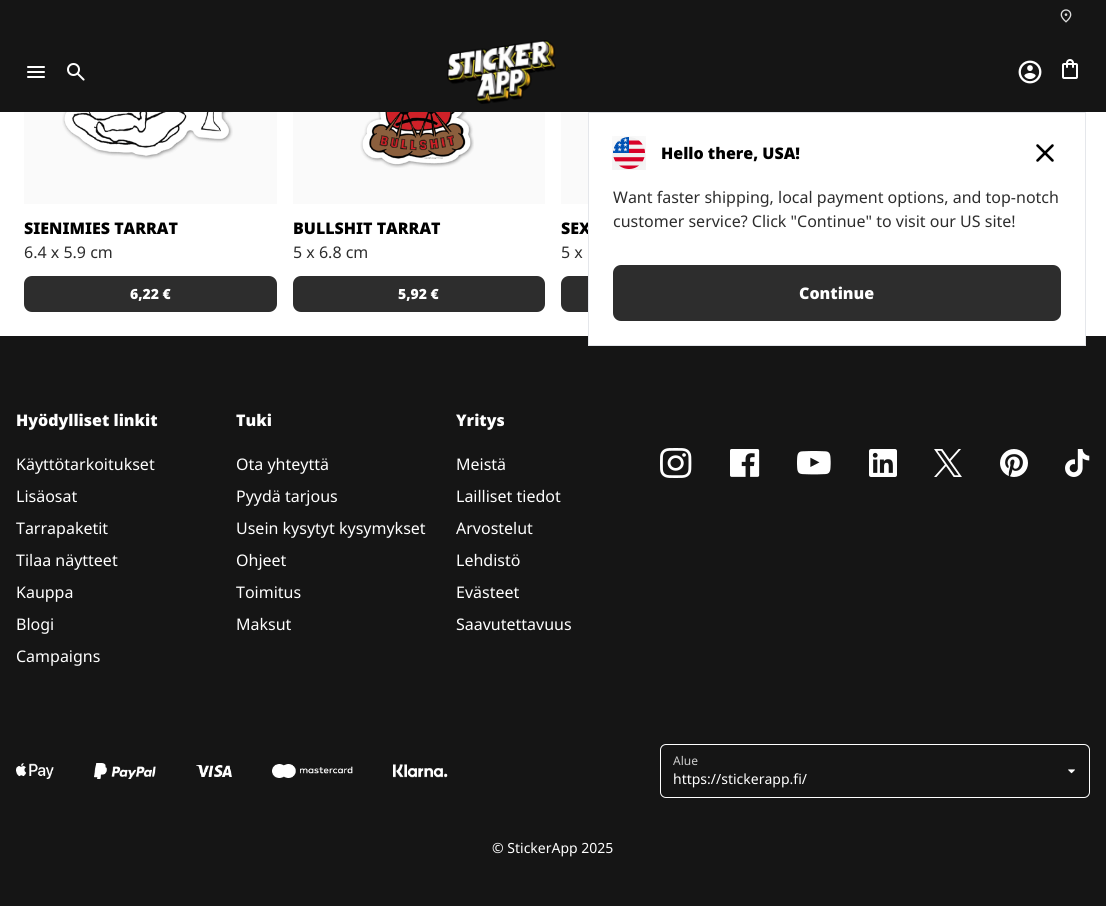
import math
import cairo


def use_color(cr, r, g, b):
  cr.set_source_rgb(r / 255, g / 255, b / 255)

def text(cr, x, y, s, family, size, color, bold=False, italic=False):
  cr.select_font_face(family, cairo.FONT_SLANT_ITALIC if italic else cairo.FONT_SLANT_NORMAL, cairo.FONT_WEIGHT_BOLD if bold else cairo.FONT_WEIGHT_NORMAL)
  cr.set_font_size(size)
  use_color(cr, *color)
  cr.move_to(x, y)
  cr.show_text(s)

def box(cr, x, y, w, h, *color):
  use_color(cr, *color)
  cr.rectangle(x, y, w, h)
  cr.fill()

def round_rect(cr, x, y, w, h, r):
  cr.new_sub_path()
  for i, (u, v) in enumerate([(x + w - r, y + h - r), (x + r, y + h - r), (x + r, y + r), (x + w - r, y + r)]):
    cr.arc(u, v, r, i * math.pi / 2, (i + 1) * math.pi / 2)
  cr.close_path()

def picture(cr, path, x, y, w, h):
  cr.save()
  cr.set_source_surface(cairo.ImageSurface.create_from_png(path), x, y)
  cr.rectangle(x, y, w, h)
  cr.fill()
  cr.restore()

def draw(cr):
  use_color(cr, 255, 255, 255)
  cr.paint()
  box(cr, 0, 0, 1106, 112, 21, 21, 21)
  picture(cr, "img_01.png", 1060, 9, 12, 14)
  picture(cr, "img_02.png", 27, 66, 18, 12)
  picture(cr, "img_03.png", 67, 63, 18, 18)
  picture(cr, "img_04.png", 447, 40, 109, 64)
  picture(cr, "img_05.png", 1018, 60, 24, 24)
  picture(cr, "img_06.png", 1062, 59, 16, 20)
  box(cr, 24, 112, 253, 92, 250, 250, 250)
  picture(cr, "img_07.png", 62, 112, 171, 48)
  use_color(cr, 45, 45, 45)
  round_rect(cr, 24, 276, 253, 36, 8)
  cr.fill()
  box(cr, 293, 112, 252, 92, 250, 250, 250)
  picture(cr, "img_08.png", 360, 112, 114, 56)
  use_color(cr, 45, 45, 45)
  round_rect(cr, 293, 276, 252, 36, 8)
  cr.fill()
  box(cr, 561, 112, 27, 92, 250, 250, 250)
  use_color(cr, 45, 45, 45)
  round_rect(cr, 561, 276, 253, 36, 8)
  cr.fill()
  box(cr, 0, 336, 1106, 570, 21, 21, 21)
  picture(cr, "img_11.png", 660, 448, 32, 30)
  picture(cr, "img_12.png", 730, 449, 30, 28)
  picture(cr, "img_13.png", 797, 451, 34, 24)
  picture(cr, "img_14.png", 869, 449, 28, 28)
  picture(cr, "img_15.png", 934, 449, 28, 28)
  picture(cr, "img_16.png", 1000, 449, 28, 28)
  picture(cr, "img_17.png", 1065, 449, 25, 28)
  picture(cr, "img_18.png", 16, 763, 38, 16)
  picture(cr, "img_19.png", 94, 763, 62, 16)
  picture(cr, "img_20.png", 196, 765, 36, 12)
  picture(cr, "img_21.png", 272, 764, 81, 14)
  picture(cr, "img_22.png", 393, 764, 55, 14)
  round_rect(cr, 660.5, 744.5, 429, 53, 5.5)
  use_color(cr, 255, 255, 255)
  cr.set_line_width(1)
  cr.stroke()
  picture(cr, "img_23.png", 1068, 769, 7, 5)
  text(cr, 24, 234, "SIENIMIES TARRAT", "Noto Sans Black", 16, (0, 0, 0))
  text(cr, 24, 258, "6.4 x 5.9 cm", "Noto Sans", 16, (45, 45, 45))
  text(cr, 130, 299, "6,22 €", "Noto Sans Black", 14, (255, 255, 255))
  text(cr, 293, 234, "BULLSHIT TARRAT", "Noto Sans Black", 16, (0, 0, 0))
  text(cr, 293, 258, "5 x 6.8 cm", "Noto Sans", 16, (45, 45, 45))
  text(cr, 398, 299, "5,92 €", "Noto Sans Black", 14, (255, 255, 255))
  text(cr, 561, 234, "SEX", "Noto Sans Black", 16, (0, 0, 0))
  text(cr, 561, 258, "5 x", "Noto Sans", 16, (45, 45, 45))
  box(cr, 589, 222, 496, 123, 255, 255, 255)
  cr.rectangle(588.5, 112.5, 497, 233)
  use_color(cr, 229, 231, 235)
  cr.stroke()
  picture(cr, "img_09.png", 612, 136, 34, 34)
  text(cr, 661, 159, "Hello there, USA!", "Noto Sans Black", 16, (0, 0, 0))
  picture(cr, "img_10.png", 1036, 144, 18, 18)
  text(cr, 613, 203, "Want faster shipping, local payment options, and top-notch", "Noto Sans", 16, (45, 45, 45))
  text(cr, 613, 227, "customer service? Click \"Continue\" to visit our US site!", "Noto Sans", 16, (45, 45, 45))
  round_rect(cr, 613, 265, 448, 56, 8)
  cr.fill()
  text(cr, 799, 299, "Continue", "Noto Sans Black", 16, (255, 255, 255))
  text(cr, 16, 426, "Hyödylliset linkit", "Noto Sans Black", 16, (255, 255, 255))
  text(cr, 16, 470, "Käyttötarkoitukset", "Noto Sans", 16, (255, 255, 255))
  text(cr, 16, 502, "Lisäosat", "Noto Sans", 16, (255, 255, 255))
  text(cr, 16, 534, "Tarrapaketit", "Noto Sans", 16, (255, 255, 255))
  text(cr, 16, 566, "Tilaa näytteet", "Noto Sans", 16, (255, 255, 255))
  text(cr, 16, 598, "Kauppa", "Noto Sans", 16, (255, 255, 255))
  text(cr, 16, 630, "Blogi", "Noto Sans", 16, (255, 255, 255))
  text(cr, 16, 662, "Campaigns", "Noto Sans", 16, (255, 255, 255))
  text(cr, 236, 426, "Tuki", "Noto Sans Black", 16, (255, 255, 255))
  text(cr, 236, 470, "Ota yhteyttä", "Noto Sans", 16, (255, 255, 255))
  text(cr, 236, 502, "Pyydä tarjous", "Noto Sans", 16, (255, 255, 255))
  text(cr, 236, 534, "Usein kysytyt kysymykset", "Noto Sans", 16, (255, 255, 255))
  text(cr, 236, 566, "Ohjeet", "Noto Sans", 16, (255, 255, 255))
  text(cr, 236, 598, "Toimitus", "Noto Sans", 16, (255, 255, 255))
  text(cr, 236, 630, "Maksut", "Noto Sans", 16, (255, 255, 255))
  text(cr, 456, 426, "Yritys", "Noto Sans Black", 16, (255, 255, 255))
  text(cr, 456, 470, "Meistä", "Noto Sans", 16, (255, 255, 255))
  text(cr, 456, 502, "Lailliset tiedot", "Noto Sans", 16, (255, 255, 255))
  text(cr, 456, 534, "Arvostelut", "Noto Sans", 16, (255, 255, 255))
  text(cr, 456, 566, "Lehdistö", "Noto Sans", 16, (255, 255, 255))
  text(cr, 456, 598, "Evästeet", "Noto Sans", 16, (255, 255, 255))
  text(cr, 456, 630, "Saavutettavuus", "Noto Sans", 16, (255, 255, 255))
  text(cr, 673, 765, "Alue", "Noto Sans", 12, (204, 204, 204))
  text(cr, 673, 784, "https://stickerapp.fi/", "Noto Sans", 14, (255, 255, 255))
  text(cr, 492, 853, "© StickerApp 2025", "Noto Sans", 14, (255, 255, 255))


surface = cairo.ImageSurface(cairo.FORMAT_RGB24, 1106, 906)
cr = cairo.Context(surface)
options = cairo.FontOptions()
options.set_hint_metrics(cairo.HINT_METRICS_OFF)
options.set_hint_style(cairo.HINT_STYLE_NONE)
cr.set_font_options(options)
cr.set_miter_limit(4)
draw(cr)
surface.write_to_png("out.png")
